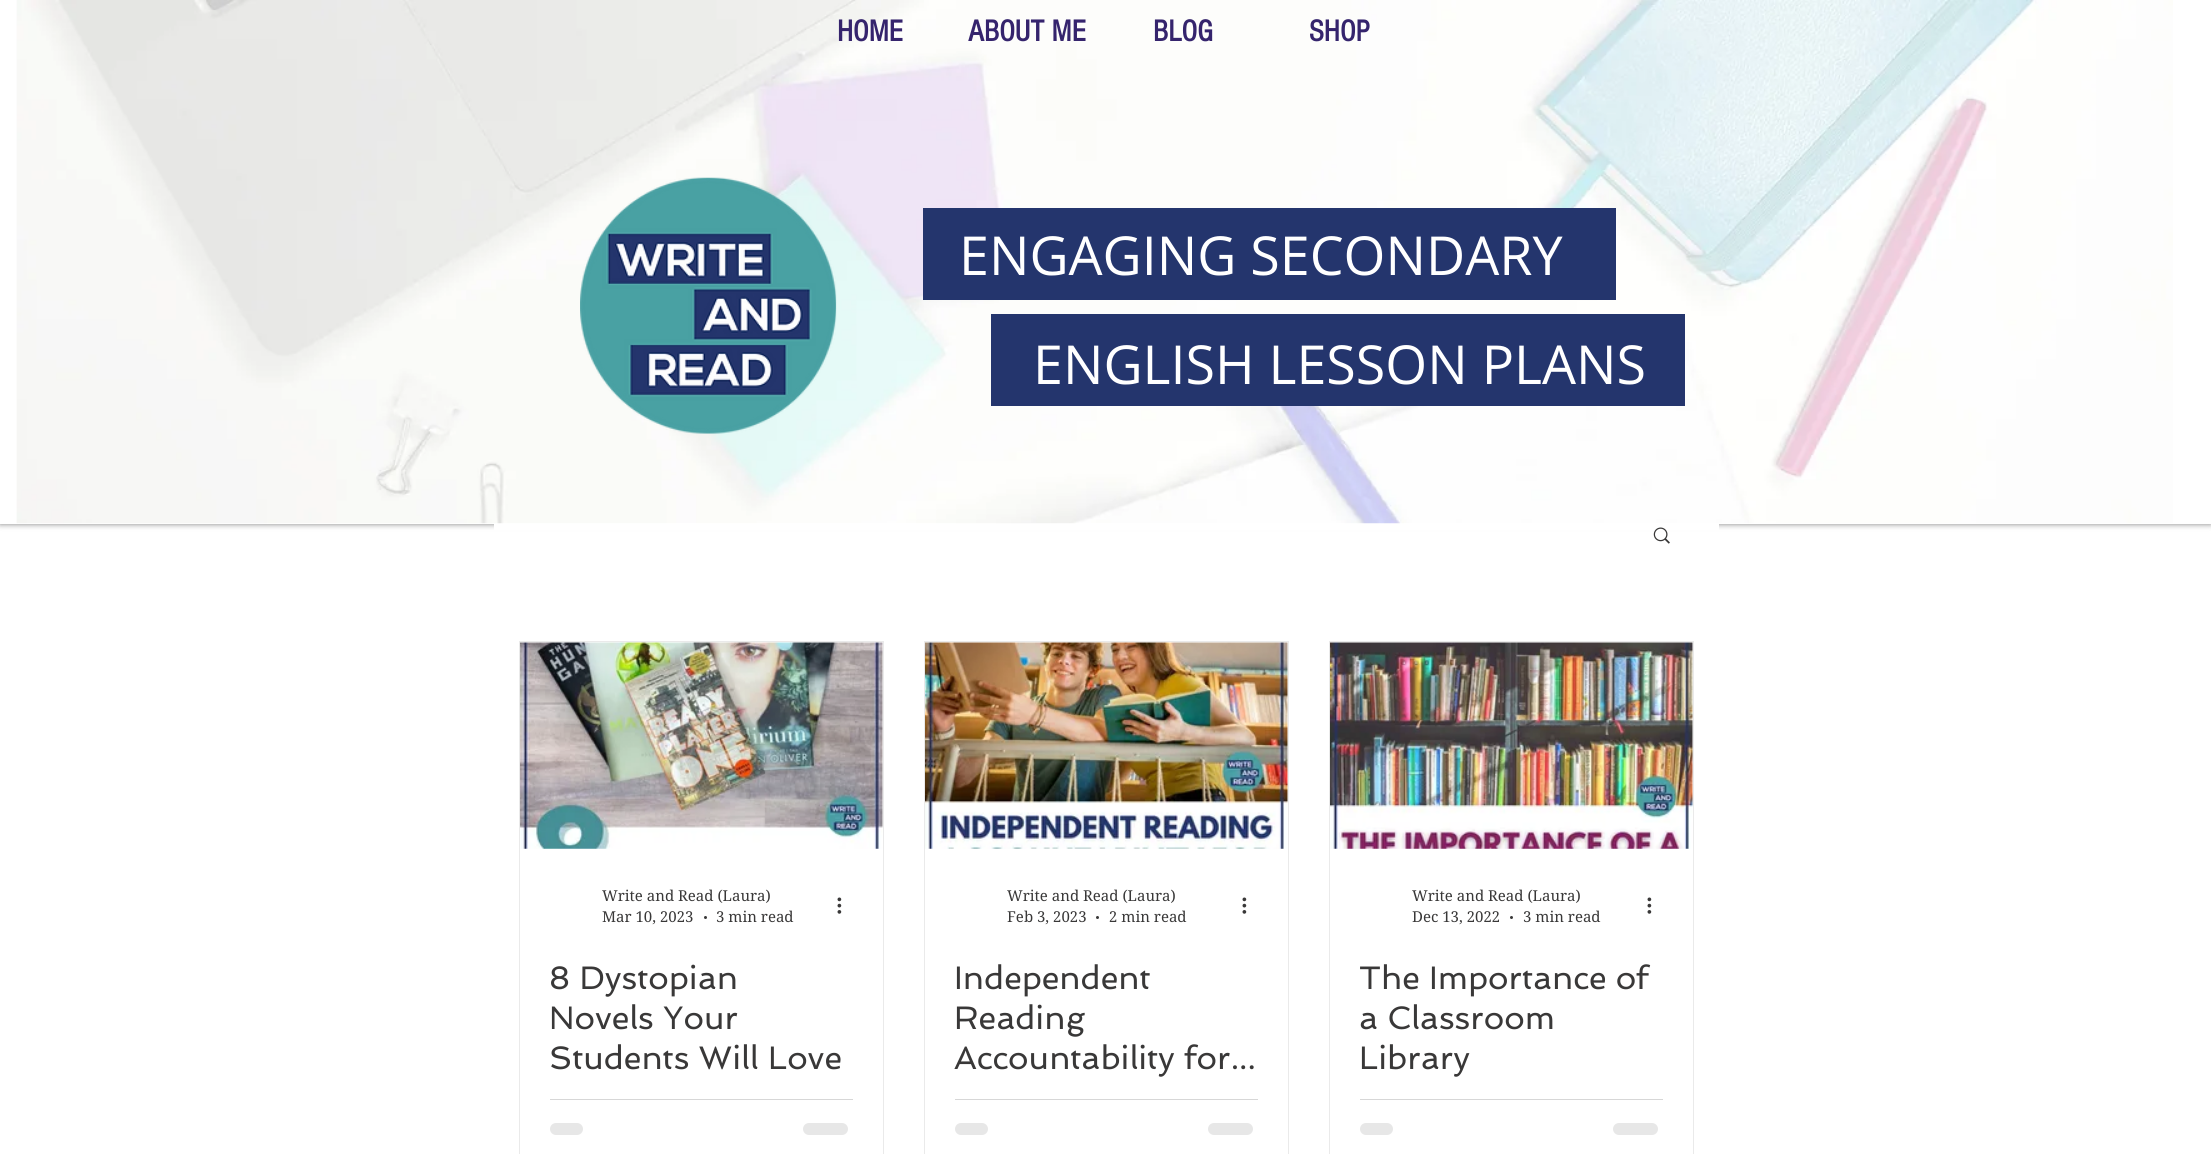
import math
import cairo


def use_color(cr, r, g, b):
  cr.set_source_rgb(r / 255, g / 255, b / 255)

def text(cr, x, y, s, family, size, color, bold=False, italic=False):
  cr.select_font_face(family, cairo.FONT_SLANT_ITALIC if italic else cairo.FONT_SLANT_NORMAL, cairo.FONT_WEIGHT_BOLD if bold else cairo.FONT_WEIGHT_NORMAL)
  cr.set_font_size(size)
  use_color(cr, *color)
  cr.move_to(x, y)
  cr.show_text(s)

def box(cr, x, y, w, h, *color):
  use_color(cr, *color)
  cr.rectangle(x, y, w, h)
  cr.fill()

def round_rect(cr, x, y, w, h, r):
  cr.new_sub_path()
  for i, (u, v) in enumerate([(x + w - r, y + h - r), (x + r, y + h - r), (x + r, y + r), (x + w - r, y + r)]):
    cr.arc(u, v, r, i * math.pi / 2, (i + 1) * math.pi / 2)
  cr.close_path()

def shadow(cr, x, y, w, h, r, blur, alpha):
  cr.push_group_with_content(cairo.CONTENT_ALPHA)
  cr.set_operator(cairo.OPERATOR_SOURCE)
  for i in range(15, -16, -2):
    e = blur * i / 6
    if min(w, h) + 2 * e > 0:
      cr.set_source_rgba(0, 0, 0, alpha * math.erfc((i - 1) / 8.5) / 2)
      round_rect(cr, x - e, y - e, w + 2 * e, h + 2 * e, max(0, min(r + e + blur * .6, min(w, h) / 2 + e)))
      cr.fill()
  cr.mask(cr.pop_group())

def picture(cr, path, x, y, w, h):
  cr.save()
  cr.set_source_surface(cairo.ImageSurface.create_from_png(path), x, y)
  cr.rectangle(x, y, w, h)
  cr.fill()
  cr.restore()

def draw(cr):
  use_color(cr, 255, 255, 255)
  cr.paint()
  use_color(cr, 0, 0, 0)
  shadow(cr, 0, 0, 2211, 524, 0, 3, 0.5)
  box(cr, 0, 0, 2211, 524, 255, 255, 255)
  picture(cr, "img_01.png", 16, 0, 2157, 524)
  picture(cr, "img_02.png", 580, 177, 257, 257)
  box(cr, 923, 208, 693, 92, 36, 53, 109)
  box(cr, 991, 314, 694, 92, 36, 53, 109)
  box(cr, 494, 524, 1225, 6, 255, 255, 255)
  picture(cr, "img_03.png", 1653, 527, 17, 17)
  cr.rectangle(519.5, 641.5, 364, 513)
  use_color(cr, 234, 234, 234)
  cr.set_line_width(1)
  cr.stroke()
  picture(cr, "img_04.png", 520, 642, 363, 207)
  use_color(cr, 57, 56, 56)
  cr.arc(705.5, 917.5, 1.5, 0, 2 * math.pi)
  cr.fill()
  picture(cr, "img_05.png", 837, 897, 5, 17)
  box(cr, 550, 1099, 303, 1, 215, 215, 215)
  use_color(cr, 231, 231, 231)
  round_rect(cr, 550, 1123, 33, 12, 6)
  cr.fill()
  round_rect(cr, 803, 1123, 45, 12, 6)
  cr.fill()
  cr.rectangle(924.5, 641.5, 364, 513)
  use_color(cr, 234, 234, 234)
  cr.stroke()
  picture(cr, "img_06.png", 925, 642, 363, 207)
  use_color(cr, 57, 56, 56)
  cr.arc(1097.5, 917.5, 1.5, 0, 2 * math.pi)
  cr.fill()
  picture(cr, "img_05.png", 1242, 897, 5, 17)
  box(cr, 955, 1099, 303, 1, 215, 215, 215)
  use_color(cr, 231, 231, 231)
  round_rect(cr, 955, 1123, 33, 12, 6)
  cr.fill()
  round_rect(cr, 1208, 1123, 45, 12, 6)
  cr.fill()
  cr.rectangle(1329.5, 641.5, 364, 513)
  use_color(cr, 234, 234, 234)
  cr.stroke()
  picture(cr, "img_07.png", 1330, 642, 363, 207)
  use_color(cr, 57, 56, 56)
  cr.arc(1511.5, 917.5, 1.5, 0, 2 * math.pi)
  cr.fill()
  picture(cr, "img_05.png", 1647, 897, 5, 17)
  box(cr, 1360, 1099, 303, 1, 215, 215, 215)
  use_color(cr, 231, 231, 231)
  round_rect(cr, 1360, 1123, 33, 12, 6)
  cr.fill()
  round_rect(cr, 1613, 1123, 45, 12, 6)
  cr.fill()
  text(cr, 837, 41, "HOME", "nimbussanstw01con", 31, (53, 36, 109), bold=True)
  text(cr, 968, 41, "ABOUT ME", "nimbussanstw01con", 31, (53, 36, 109), bold=True)
  text(cr, 1153, 41, "BLOG", "nimbussanstw01con", 31, (53, 36, 109), bold=True)
  text(cr, 1309, 41, "SHOP", "nimbussanstw01con", 31, (53, 36, 109), bold=True)
  text(cr, 959, 275, "ENGAGING SECONDARY", "Open Sans", 53.75, (255, 255, 255))
  text(cr, 1033, 384, "ENGLISH LESSON PLANS", "Open Sans", 53.75, (255, 255, 255))
  text(cr, 602, 901, "Write and Read (Laura)", "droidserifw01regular", 15, (57, 56, 56))
  text(cr, 602, 922, "Mar 10, 2023", "droidserifw01regular", 15, (57, 56, 56))
  text(cr, 716, 922, "3 min read", "droidserifw01regular", 15, (57, 56, 56))
  text(cr, 549, 989, "8 Dystopian", "Spinnaker", 32.5, (57, 56, 56))
  text(cr, 549, 1029, "Novels Your", "Spinnaker", 32.5, (57, 56, 56))
  text(cr, 549, 1069, "Students Will Love", "Spinnaker", 32.5, (57, 56, 56))
  text(cr, 1007, 901, "Write and Read (Laura)", "droidserifw01regular", 15, (57, 56, 56))
  text(cr, 1007, 922, "Feb 3, 2023", "droidserifw01regular", 15, (57, 56, 56))
  text(cr, 1109, 922, "2 min read", "droidserifw01regular", 15, (57, 56, 56))
  text(cr, 954, 989, "Independent", "Spinnaker", 32.5, (57, 56, 56))
  text(cr, 954, 1029, "Reading", "Spinnaker", 32.5, (57, 56, 56))
  text(cr, 954, 1069, "Accountability for...", "Spinnaker", 32.5, (57, 56, 56))
  text(cr, 1412, 901, "Write and Read (Laura)", "droidserifw01regular", 15, (57, 56, 56))
  text(cr, 1412, 922, "Dec 13, 2022", "droidserifw01regular", 15, (57, 56, 56))
  text(cr, 1523, 922, "3 min read", "droidserifw01regular", 15, (57, 56, 56))
  text(cr, 1359, 989, "The Importance of", "Spinnaker", 32.5, (57, 56, 56))
  text(cr, 1359, 1029, "a Classroom", "Spinnaker", 32.5, (57, 56, 56))
  text(cr, 1359, 1069, "Library", "Spinnaker", 32.5, (57, 56, 56))


surface = cairo.ImageSurface(cairo.FORMAT_RGB24, 2211, 1154)
cr = cairo.Context(surface)
options = cairo.FontOptions()
options.set_hint_metrics(cairo.HINT_METRICS_OFF)
options.set_hint_style(cairo.HINT_STYLE_NONE)
cr.set_font_options(options)
cr.set_miter_limit(4)
draw(cr)
surface.write_to_png("out.png")
